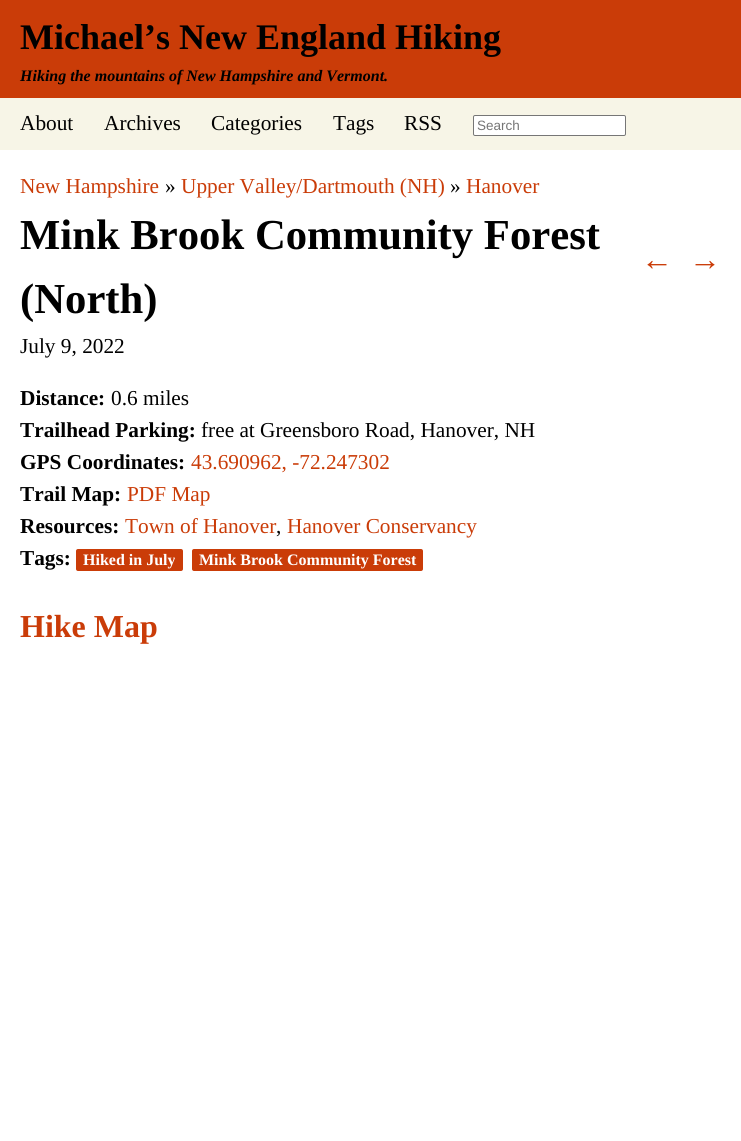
import math
import cairo


def use_color(cr, r, g, b):
  cr.set_source_rgb(r / 255, g / 255, b / 255)

def text(cr, x, y, s, family, size, color, bold=False, italic=False):
  cr.select_font_face(family, cairo.FONT_SLANT_ITALIC if italic else cairo.FONT_SLANT_NORMAL, cairo.FONT_WEIGHT_BOLD if bold else cairo.FONT_WEIGHT_NORMAL)
  cr.set_font_size(size)
  use_color(cr, *color)
  cr.move_to(x, y)
  cr.show_text(s)

def box(cr, x, y, w, h, *color):
  use_color(cr, *color)
  cr.rectangle(x, y, w, h)
  cr.fill()

def round_rect(cr, x, y, w, h, r):
  cr.new_sub_path()
  for i, (u, v) in enumerate([(x + w - r, y + h - r), (x + r, y + h - r), (x + r, y + r), (x + w - r, y + r)]):
    cr.arc(u, v, r, i * math.pi / 2, (i + 1) * math.pi / 2)
  cr.close_path()

def draw(cr):
  use_color(cr, 255, 255, 255)
  cr.paint()
  box(cr, 0, 0, 741, 98, 202, 60, 8)
  box(cr, 0, 98, 741, 52, 247, 245, 231)
  use_color(cr, 255, 255, 255)
  round_rect(cr, 473.5, 115.5, 152, 20, 1.5)
  cr.fill_preserve()
  use_color(cr, 118, 118, 118)
  cr.set_line_width(1)
  cr.stroke()
  use_color(cr, 202, 60, 8)
  round_rect(cr, 76, 549, 107, 22, 2)
  cr.fill()
  round_rect(cr, 192, 549, 231, 22, 2)
  cr.fill()
  text(cr, 20, 49, "Michael’s New England Hiking", "Liberation Serif", 36, (0, 0, 0), bold=True)
  text(cr, 20, 81, "Hiking the mountains of New Hampshire and Vermont.", "Liberation Serif", 16, (0, 0, 0), bold=True, italic=True)
  text(cr, 20, 130, "About", "Liberation Serif", 21.3, (0, 0, 0))
  text(cr, 104, 130, "Archives", "Liberation Serif", 21.3, (0, 0, 0))
  text(cr, 211, 130, "Categories", "Liberation Serif", 21.3, (0, 0, 0))
  text(cr, 333, 130, "Tags", "Liberation Serif", 21.3, (0, 0, 0))
  text(cr, 404, 130, "RSS", "Liberation Serif", 21.3, (0, 0, 0))
  text(cr, 477, 130, "Search", "Liberation Sans", 13.5, (117, 117, 117))
  text(cr, 20, 193, "New Hampshire", "Liberation Serif", 21.3, (202, 60, 8))
  text(cr, 165, 193, "»", "Liberation Serif", 21.3, (0, 0, 0))
  text(cr, 181, 193, "Upper Valley/Dartmouth (NH)", "Liberation Serif", 21.3, (202, 60, 8))
  text(cr, 450, 193, "»", "Liberation Serif", 21.3, (0, 0, 0))
  text(cr, 466, 193, "Hanover", "Liberation Serif", 21.3, (202, 60, 8))
  text(cr, 20, 249, "Mink Brook Community Forest", "Liberation Serif", 42.7, (0, 0, 0), bold=True)
  text(cr, 20, 313, "(North)", "Liberation Serif", 42.7, (0, 0, 0), bold=True)
  text(cr, 641, 270, "←", "Liberation Serif", 32, (202, 60, 8))
  text(cr, 689, 270, "→", "Liberation Serif", 32, (202, 60, 8))
  text(cr, 20, 353, "July 9, 2022", "Liberation Serif", 21.3, (0, 0, 0))
  text(cr, 20, 405, "Distance:", "Liberation Serif", 21.3, (0, 0, 0), bold=True)
  text(cr, 111, 405, "0.6 miles", "Liberation Serif", 21.3, (0, 0, 0))
  text(cr, 20, 437, "Trailhead Parking:", "Liberation Serif", 21.3, (0, 0, 0), bold=True)
  text(cr, 201, 437, "free at Greensboro Road, Hanover, NH", "Liberation Serif", 21.3, (0, 0, 0))
  text(cr, 20, 469, "GPS Coordinates:", "Liberation Serif", 21.3, (0, 0, 0), bold=True)
  text(cr, 191, 469, "43.690962, -72.247302", "Liberation Serif", 21.3, (202, 60, 8))
  text(cr, 20, 501, "Trail Map:", "Liberation Serif", 21.3, (0, 0, 0), bold=True)
  text(cr, 127, 501, "PDF Map", "Liberation Serif", 21.3, (202, 60, 8))
  text(cr, 20, 533, "Resources:", "Liberation Serif", 21.3, (0, 0, 0), bold=True)
  text(cr, 125, 533, "Town of Hanover", "Liberation Serif", 21.3, (202, 60, 8))
  text(cr, 276, 533, ",", "Liberation Serif", 21.3, (0, 0, 0))
  text(cr, 287, 533, "Hanover Conservancy", "Liberation Serif", 21.3, (202, 60, 8))
  text(cr, 20, 565, "Tags:", "Liberation Serif", 21.3, (0, 0, 0), bold=True)
  text(cr, 83, 565, "Hiked in July", "Liberation Serif", 16, (255, 255, 255), bold=True)
  text(cr, 199, 565, "Mink Brook Community Forest", "Liberation Serif", 16, (255, 255, 255), bold=True)
  text(cr, 20, 637, "Hike Map", "Liberation Serif", 32, (202, 60, 8), bold=True)


surface = cairo.ImageSurface(cairo.FORMAT_RGB24, 741, 1141)
cr = cairo.Context(surface)
options = cairo.FontOptions()
options.set_hint_metrics(cairo.HINT_METRICS_OFF)
options.set_hint_style(cairo.HINT_STYLE_NONE)
cr.set_font_options(options)
cr.set_miter_limit(4)
draw(cr)
surface.write_to_png("out.png")
